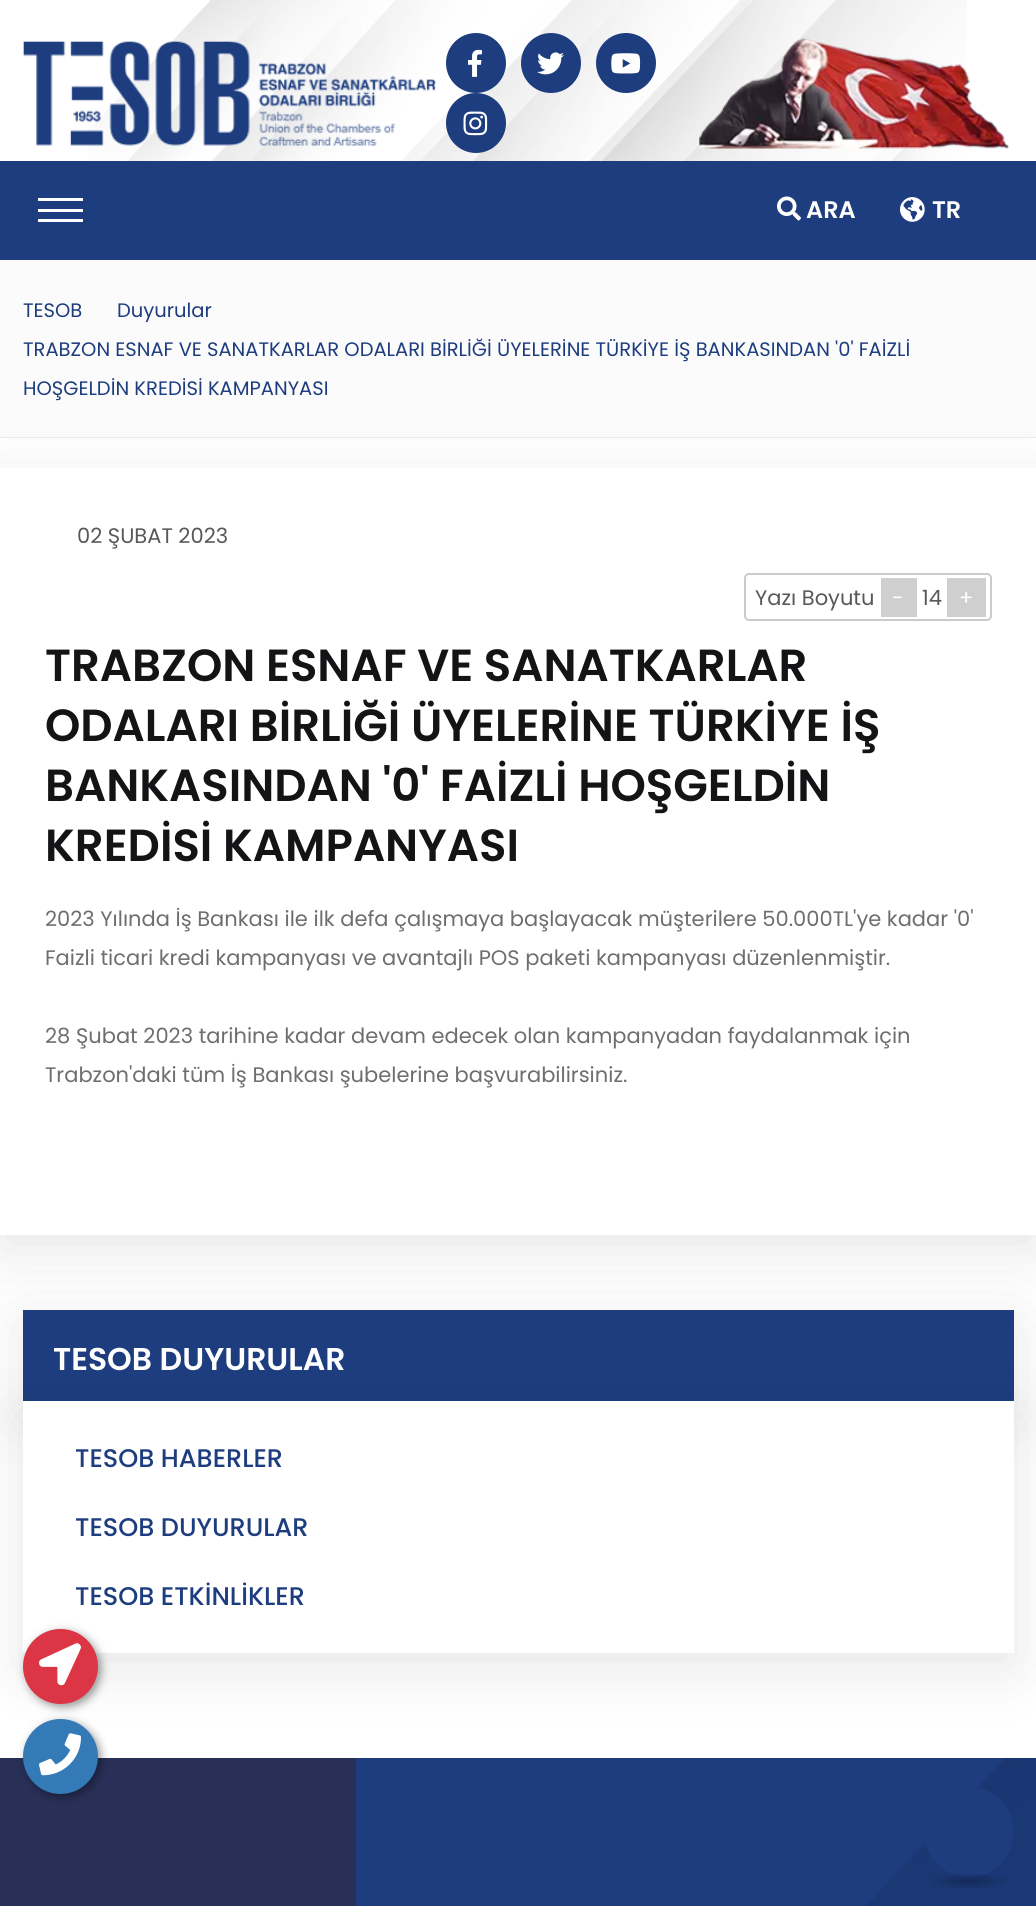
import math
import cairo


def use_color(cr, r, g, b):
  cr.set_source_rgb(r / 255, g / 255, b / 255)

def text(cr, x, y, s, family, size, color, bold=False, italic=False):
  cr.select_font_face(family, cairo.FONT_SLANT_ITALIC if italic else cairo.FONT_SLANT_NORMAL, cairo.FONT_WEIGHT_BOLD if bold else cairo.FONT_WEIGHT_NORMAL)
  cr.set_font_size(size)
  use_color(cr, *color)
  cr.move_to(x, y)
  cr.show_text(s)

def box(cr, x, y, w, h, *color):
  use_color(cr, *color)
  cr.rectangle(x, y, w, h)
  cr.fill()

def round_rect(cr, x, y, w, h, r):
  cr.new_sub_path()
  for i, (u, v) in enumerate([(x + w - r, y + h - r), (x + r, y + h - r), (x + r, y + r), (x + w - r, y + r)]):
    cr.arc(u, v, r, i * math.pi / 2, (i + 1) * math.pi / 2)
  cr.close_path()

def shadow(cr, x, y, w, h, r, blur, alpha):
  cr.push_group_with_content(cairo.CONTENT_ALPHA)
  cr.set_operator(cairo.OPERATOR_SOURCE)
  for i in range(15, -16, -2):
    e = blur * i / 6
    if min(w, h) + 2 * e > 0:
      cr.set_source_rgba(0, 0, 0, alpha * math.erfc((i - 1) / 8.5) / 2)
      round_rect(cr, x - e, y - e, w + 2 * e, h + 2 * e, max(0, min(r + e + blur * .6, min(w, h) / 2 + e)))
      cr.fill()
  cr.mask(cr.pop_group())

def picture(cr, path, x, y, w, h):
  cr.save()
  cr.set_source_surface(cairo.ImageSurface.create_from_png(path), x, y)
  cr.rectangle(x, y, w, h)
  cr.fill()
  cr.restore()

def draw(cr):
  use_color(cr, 255, 255, 255)
  cr.paint()
  picture(cr, "img_01.png", 88, 0, 879, 161)
  picture(cr, "img_02.png", 23, 41, 413, 105)
  use_color(cr, 29, 61, 127)
  cr.arc(476, 63, 30, 0, 2 * math.pi)
  cr.fill()
  picture(cr, "img_03.png", 468, 49, 14, 28)
  cr.arc(551, 63, 30, 0, 2 * math.pi)
  cr.fill()
  picture(cr, "img_04.png", 537, 52, 27, 23)
  cr.arc(626, 63, 30, 0, 2 * math.pi)
  cr.fill()
  picture(cr, "img_05.png", 611, 53, 30, 21)
  cr.arc(476, 123, 30, 0, 2 * math.pi)
  cr.fill()
  picture(cr, "img_06.png", 463, 111, 25, 25)
  picture(cr, "img_07.png", 699, 38, 310, 111)
  box(cr, 0, 161, 1036, 99, 29, 61, 127)
  box(cr, 38, 198, 45, 3, 255, 255, 255)
  box(cr, 38, 209, 45, 3, 255, 255, 255)
  box(cr, 38, 219, 45, 3, 255, 255, 255)
  picture(cr, "img_08.png", 777, 196, 24, 25)
  picture(cr, "img_09.png", 900, 197, 25, 25)
  box(cr, 0, 260, 1036, 177, 251, 251, 251)
  box(cr, 0, 437, 1036, 1, 235, 235, 235)
  use_color(cr, 0, 0, 0)
  shadow(cr, 0, 483, 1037, 767, 0, 30, 0.1)
  box(cr, 0, 468, 1036, 767, 255, 255, 255)
  round_rect(cr, 745, 574, 246, 46, 4)
  use_color(cr, 203, 203, 203)
  cr.stroke()
  box(cr, 881, 578, 36, 39, 207, 207, 207)
  box(cr, 947, 578, 39, 39, 207, 207, 207)
  use_color(cr, 0, 0, 0)
  shadow(cr, 23, 1325, 991, 91, 0, 30, 0.1)
  box(cr, 23, 1310, 991, 91, 29, 61, 127)
  use_color(cr, 0, 0, 0)
  shadow(cr, 23, 1416, 991, 252, 0, 30, 0.1)
  box(cr, 23, 1401, 991, 252, 255, 255, 255)
  use_color(cr, 0, 0, 0)
  shadow(cr, 26, 1632, 75, 75, 37.5, 4.5, 0.4)
  use_color(cr, 220, 53, 69)
  cr.arc(60.5, 1666.5, 37.5, 0, 2 * math.pi)
  cr.fill()
  picture(cr, "img_10.png", 39, 1643, 42, 43)
  box(cr, 0, 1758, 356, 148, 41, 48, 88)
  use_color(cr, 0, 0, 0)
  shadow(cr, 26, 1722, 75, 75, 37.5, 4.5, 0.4)
  use_color(cr, 51, 122, 183)
  cr.arc(60.5, 1756.5, 37.5, 0, 2 * math.pi)
  cr.fill()
  picture(cr, "img_11.png", 39, 1733, 42, 43)
  box(cr, 356, 1758, 680, 148, 29, 61, 127)
  picture(cr, "img_12.png", 866, 1758, 170, 148)
  cr.arc(969, 1832, 43.5, 0, 2 * math.pi)
  cr.fill_preserve()
  cr.set_line_width(3)
  cr.stroke()
  gradient = cairo.RadialGradient(0, 0, 0, 0, 0, 1)
  gradient.set_matrix(cairo.Matrix(1 / 53, 0, 0, 1 / 11, -1 * 969 / 53, -1 * 1881 / 11))
  gradient.add_color_stop_rgba(0, 0, 0, 0, 0.25)
  gradient.add_color_stop_rgba(0.8, 0, 0, 0, 0)
  cr.set_source(gradient)
  cr.rectangle(932, 1874, 75, 15)
  cr.fill()
  text(cr, 806, 218, "ARA", "Poppins SemiBold", 24, (255, 255, 255))
  text(cr, 932, 218, "TR", "Poppins SemiBold", 24, (255, 255, 255))
  text(cr, 23, 317, "TESOB", "Poppins", 19.5, (29, 61, 127))
  text(cr, 117, 317, "Duyurular", "Poppins", 19.5, (29, 61, 127))
  text(cr, 23, 356, "TRABZON ESNAF VE SANATKARLAR ODALARI BİRLİĞİ ÜYELERİNE TÜRKİYE İŞ BANKASINDAN '0' FAİZLİ", "Poppins", 19.5, (29, 61, 127))
  text(cr, 23, 395, "HOŞGELDİN KREDİSİ KAMPANYASI", "Poppins", 19.5, (29, 61, 127))
  text(cr, 77, 543, "02 ŞUBAT 2023", "Poppins", 21, (88, 88, 88))
  text(cr, 755, 605, "Yazı Boyutu", "Poppins", 21, (88, 88, 88))
  text(cr, 892, 605, "-", "Poppins", 21, (255, 255, 255))
  text(cr, 922, 605, "14", "Poppins", 21, (88, 88, 88))
  text(cr, 959, 605, "+", "Poppins", 21, (255, 255, 255))
  text(cr, 45, 681, "TRABZON ESNAF VE SANATKARLAR", "Poppins SemiBold", 45, (20, 20, 23))
  text(cr, 45, 741, "ODALARI BİRLİĞİ ÜYELERİNE TÜRKİYE İŞ", "Poppins SemiBold", 45, (20, 20, 23))
  text(cr, 45, 801, "BANKASINDAN '0' FAİZLİ HOŞGELDİN", "Poppins SemiBold", 45, (20, 20, 23))
  text(cr, 45, 861, "KREDİSİ KAMPANYASI", "Poppins SemiBold", 45, (20, 20, 23))
  text(cr, 45, 926, "2023 Yılında İş Bankası ile ilk defa çalışmaya başlayacak müşterilere 50.000TL'ye kadar '0'", "Poppins", 21, (110, 110, 110))
  text(cr, 45, 965, "Faizli ticari kredi kampanyası ve avantajlı POS paketi kampanyası düzenlenmiştir.", "Poppins", 21, (110, 110, 110))
  text(cr, 45, 1043, "28 Şubat 2023 tarihine kadar devam edecek olan kampanyadan faydalanmak için", "Poppins", 21, (110, 110, 110))
  text(cr, 45, 1082, "Trabzon'daki tüm İş Bankası şubelerine başvurabilirsiniz.", "Poppins", 21, (110, 110, 110))
  text(cr, 53, 1370, "TESOB DUYURULAR", "Poppins SemiBold", 31.5, (255, 255, 255))
  text(cr, 75, 1467, "TESOB HABERLER", "Poppins Medium", 25.5, (29, 61, 127))
  text(cr, 75, 1536, "TESOB DUYURULAR", "Poppins Medium", 25.5, (29, 61, 127))
  text(cr, 75, 1605, "TESOB ETKİNLİKLER", "Poppins Medium", 25.5, (29, 61, 127))


surface = cairo.ImageSurface(cairo.FORMAT_RGB24, 1036, 1906)
cr = cairo.Context(surface)
options = cairo.FontOptions()
options.set_hint_metrics(cairo.HINT_METRICS_OFF)
options.set_hint_style(cairo.HINT_STYLE_NONE)
cr.set_font_options(options)
cr.set_miter_limit(4)
draw(cr)
surface.write_to_png("out.png")
